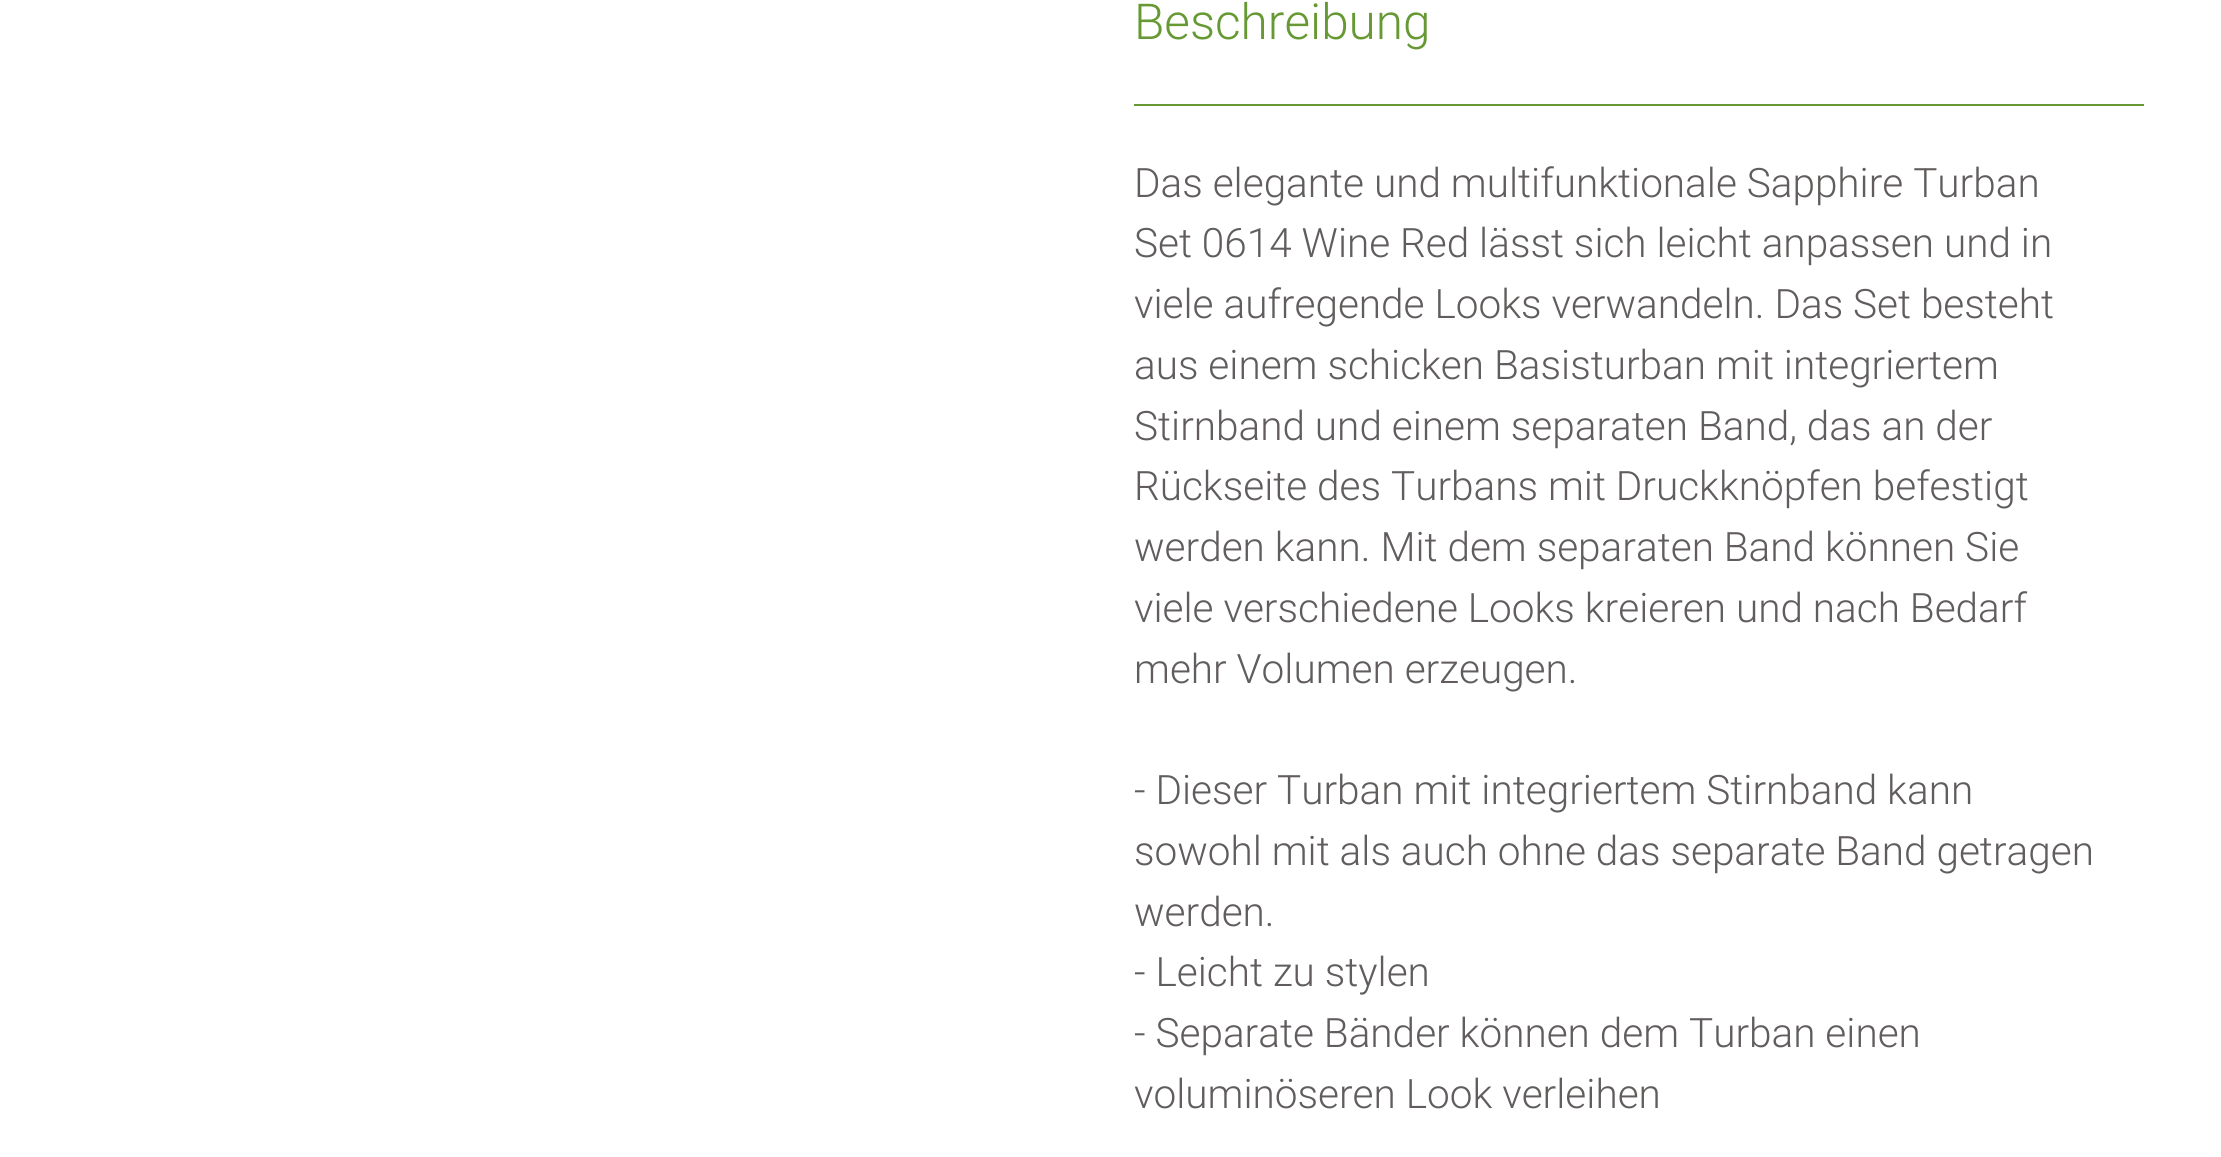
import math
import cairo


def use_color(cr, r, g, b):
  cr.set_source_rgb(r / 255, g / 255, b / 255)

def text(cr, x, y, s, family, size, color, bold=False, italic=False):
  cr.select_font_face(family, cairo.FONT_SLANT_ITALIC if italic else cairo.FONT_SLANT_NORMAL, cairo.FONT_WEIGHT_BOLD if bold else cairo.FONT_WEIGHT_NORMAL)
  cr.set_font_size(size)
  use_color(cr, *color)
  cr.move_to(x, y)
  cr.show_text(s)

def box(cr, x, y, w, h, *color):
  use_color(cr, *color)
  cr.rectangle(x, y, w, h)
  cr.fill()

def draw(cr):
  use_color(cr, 255, 255, 255)
  cr.paint()
  box(cr, 1134, 104, 1010, 2, 102, 153, 51)
  text(cr, 1134, 39, "Beschreibung", "Roboto Light", 49.5, (102, 153, 51))
  text(cr, 1134, 197, "Das elegante und multifunktionale Sapphire Turban", "Roboto Light", 40.5, (96, 93, 92))
  text(cr, 1134, 257, "Set 0614 Wine Red lässt sich leicht anpassen und in", "Roboto Light", 40.5, (96, 93, 92))
  text(cr, 1134, 318, "viele aufregende Looks verwandeln. Das Set besteht", "Roboto Light", 40.5, (96, 93, 92))
  text(cr, 1134, 379, "aus einem schicken Basisturban mit integriertem", "Roboto Light", 40.5, (96, 93, 92))
  text(cr, 1134, 440, "Stirnband und einem separaten Band, das an der", "Roboto Light", 40.5, (96, 93, 92))
  text(cr, 1134, 500, "Rückseite des Turbans mit Druckknöpfen befestigt", "Roboto Light", 40.5, (96, 93, 92))
  text(cr, 1134, 561, "werden kann. Mit dem separaten Band können Sie", "Roboto Light", 40.5, (96, 93, 92))
  text(cr, 1134, 622, "viele verschiedene Looks kreieren und nach Bedarf", "Roboto Light", 40.5, (96, 93, 92))
  text(cr, 1134, 683, "mehr Volumen erzeugen.", "Roboto Light", 40.5, (96, 93, 92))
  text(cr, 1134, 804, "- Dieser Turban mit integriertem Stirnband kann", "Roboto Light", 40.5, (96, 93, 92))
  text(cr, 1134, 865, "sowohl mit als auch ohne das separate Band getragen", "Roboto Light", 40.5, (96, 93, 92))
  text(cr, 1134, 926, "werden.", "Roboto Light", 40.5, (96, 93, 92))
  text(cr, 1134, 986, "- Leicht zu stylen", "Roboto Light", 40.5, (96, 93, 92))
  text(cr, 1134, 1047, "- Separate Bänder können dem Turban einen", "Roboto Light", 40.5, (96, 93, 92))
  text(cr, 1134, 1108, "voluminöseren Look verleihen", "Roboto Light", 40.5, (96, 93, 92))


surface = cairo.ImageSurface(cairo.FORMAT_RGB24, 2221, 1157)
cr = cairo.Context(surface)
options = cairo.FontOptions()
options.set_hint_metrics(cairo.HINT_METRICS_OFF)
options.set_hint_style(cairo.HINT_STYLE_NONE)
cr.set_font_options(options)
cr.set_miter_limit(4)
draw(cr)
surface.write_to_png("out.png")
